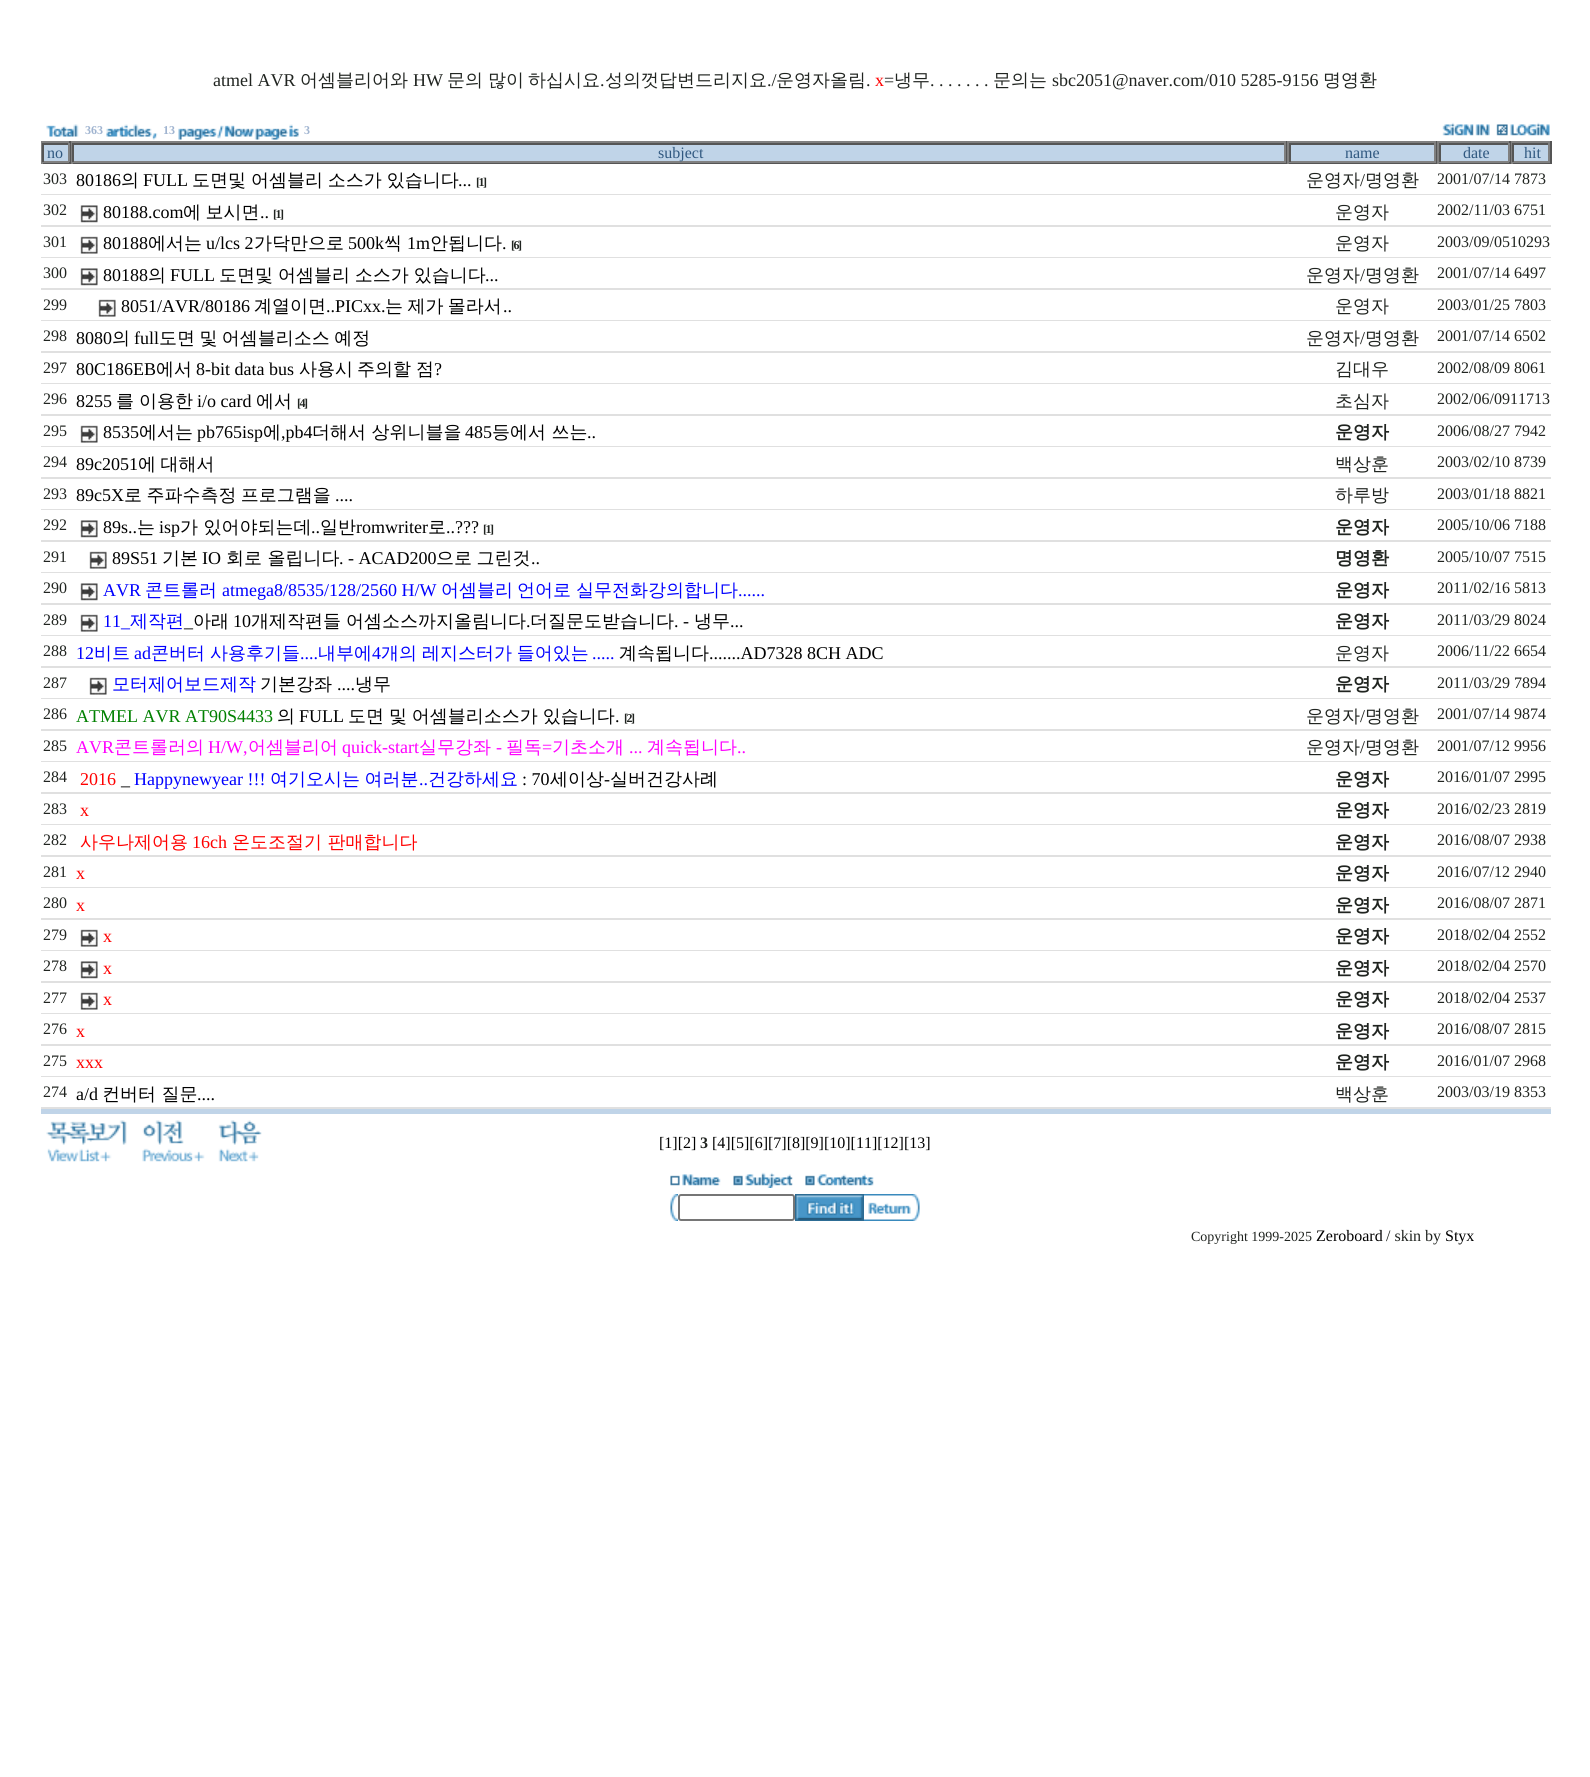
import math
import cairo


def use_color(cr, r, g, b):
  cr.set_source_rgb(r / 255, g / 255, b / 255)

def text(cr, x, y, s, family, size, color, bold=False, italic=False):
  cr.select_font_face(family, cairo.FONT_SLANT_ITALIC if italic else cairo.FONT_SLANT_NORMAL, cairo.FONT_WEIGHT_BOLD if bold else cairo.FONT_WEIGHT_NORMAL)
  cr.set_font_size(size)
  use_color(cr, *color)
  cr.move_to(x, y)
  cr.show_text(s)

def spaced_text(cr, x, y, s, letter, word):
  cr.move_to(x, y)
  for ch in s:
    cr.show_text(ch)
    cr.rel_move_to(letter + word * (ch == ' '), 0)

def box(cr, x, y, w, h, *color):
  use_color(cr, *color)
  cr.rectangle(x, y, w, h)
  cr.fill()

def round_rect(cr, x, y, w, h, r):
  cr.new_sub_path()
  for i, (u, v) in enumerate([(x + w - r, y + h - r), (x + r, y + h - r), (x + r, y + r), (x + w - r, y + r)]):
    cr.arc(u, v, r, i * math.pi / 2, (i + 1) * math.pi / 2)
  cr.close_path()

def picture(cr, path, x, y, w, h):
  cr.save()
  cr.set_source_surface(cairo.ImageSurface.create_from_png(path), x, y)
  cr.rectangle(x, y, w, h)
  cr.fill()
  cr.restore()

def draw(cr):
  use_color(cr, 255, 255, 255)
  cr.paint()
  picture(cr, "img_01.png", 46, 124, 33, 13)
  picture(cr, "img_02.png", 106, 124, 52, 16)
  picture(cr, "img_03.png", 178, 124, 121, 16)
  picture(cr, "img_04.png", 1442, 122, 48, 14)
  picture(cr, "img_05.png", 1496, 122, 54, 14)
  box(cr, 44, 145, 24, 16, 192, 212, 232)
  box(cr, 41, 141, 1510, 2, 128, 128, 128)
  box(cr, 69, 141, 2, 23, 85, 85, 85)
  box(cr, 41, 162, 30, 2, 85, 85, 85)
  box(cr, 41, 141, 2, 23, 128, 128, 128)
  box(cr, 42, 143, 27, 2, 85, 85, 85)
  box(cr, 68, 143, 2, 19, 128, 128, 128)
  box(cr, 42, 161, 27, 2, 128, 128, 128)
  box(cr, 42, 143, 2, 19, 85, 85, 85)
  box(cr, 74, 145, 1210, 16, 192, 212, 232)
  box(cr, 1286, 141, 1, 23, 85, 85, 85)
  box(cr, 71, 162, 1216, 2, 85, 85, 85)
  box(cr, 71, 141, 2, 23, 128, 128, 128)
  box(cr, 72, 143, 1214, 2, 85, 85, 85)
  box(cr, 1284, 143, 2, 19, 128, 128, 128)
  box(cr, 72, 161, 1214, 2, 128, 128, 128)
  box(cr, 72, 143, 2, 19, 85, 85, 85)
  box(cr, 1291, 145, 143, 16, 192, 212, 232)
  box(cr, 1436, 141, 1, 23, 85, 85, 85)
  box(cr, 1287, 162, 150, 2, 85, 85, 85)
  box(cr, 1287, 141, 2, 23, 128, 128, 128)
  box(cr, 1289, 143, 147, 2, 85, 85, 85)
  box(cr, 1434, 143, 2, 19, 128, 128, 128)
  box(cr, 1289, 161, 147, 2, 128, 128, 128)
  box(cr, 1289, 143, 2, 19, 85, 85, 85)
  box(cr, 1441, 145, 67, 16, 192, 212, 232)
  box(cr, 1509, 141, 2, 23, 85, 85, 85)
  box(cr, 1437, 162, 74, 2, 85, 85, 85)
  box(cr, 1437, 141, 2, 23, 128, 128, 128)
  box(cr, 1439, 143, 70, 2, 85, 85, 85)
  box(cr, 1508, 143, 2, 19, 128, 128, 128)
  box(cr, 1439, 161, 70, 2, 128, 128, 128)
  box(cr, 1439, 143, 2, 19, 85, 85, 85)
  box(cr, 1514, 145, 34, 16, 192, 212, 232)
  box(cr, 1550, 141, 2, 23, 85, 85, 85)
  box(cr, 1511, 162, 40, 2, 85, 85, 85)
  box(cr, 1511, 141, 2, 23, 128, 128, 128)
  box(cr, 1512, 143, 38, 2, 85, 85, 85)
  box(cr, 1548, 143, 2, 19, 128, 128, 128)
  box(cr, 1512, 161, 38, 2, 128, 128, 128)
  box(cr, 1512, 143, 2, 19, 85, 85, 85)
  box(cr, 41, 194, 1510, 1, 224, 224, 224)
  picture(cr, "img_06.png", 80, 205, 18, 18)
  box(cr, 41, 225, 1510, 2, 224, 224, 224)
  picture(cr, "img_07.png", 80, 236, 18, 18)
  box(cr, 41, 257, 1510, 1, 224, 224, 224)
  picture(cr, "img_06.png", 80, 268, 18, 18)
  box(cr, 41, 288, 1510, 2, 224, 224, 224)
  picture(cr, "img_07.png", 98, 299, 18, 18)
  box(cr, 41, 320, 1510, 1, 224, 224, 224)
  box(cr, 41, 351, 1510, 2, 224, 224, 224)
  box(cr, 41, 383, 1510, 1, 224, 224, 224)
  box(cr, 41, 414, 1510, 2, 224, 224, 224)
  picture(cr, "img_07.png", 80, 425, 18, 18)
  box(cr, 41, 446, 1510, 1, 224, 224, 224)
  box(cr, 41, 477, 1510, 2, 224, 224, 224)
  box(cr, 41, 509, 1510, 1, 224, 224, 224)
  picture(cr, "img_06.png", 80, 520, 18, 18)
  box(cr, 41, 540, 1510, 2, 224, 224, 224)
  picture(cr, "img_07.png", 89, 551, 18, 18)
  box(cr, 41, 572, 1510, 1, 224, 224, 224)
  picture(cr, "img_06.png", 80, 583, 18, 18)
  box(cr, 41, 603, 1510, 2, 224, 224, 224)
  picture(cr, "img_07.png", 80, 614, 18, 18)
  box(cr, 41, 635, 1510, 1, 224, 224, 224)
  box(cr, 41, 666, 1510, 2, 224, 224, 224)
  picture(cr, "img_07.png", 89, 677, 18, 18)
  box(cr, 41, 698, 1510, 1, 224, 224, 224)
  box(cr, 41, 729, 1510, 2, 224, 224, 224)
  box(cr, 41, 761, 1510, 1, 224, 224, 224)
  box(cr, 41, 792, 1510, 2, 224, 224, 224)
  box(cr, 41, 824, 1510, 1, 224, 224, 224)
  box(cr, 41, 855, 1510, 2, 224, 224, 224)
  box(cr, 41, 887, 1510, 1, 224, 224, 224)
  box(cr, 41, 918, 1510, 2, 224, 224, 224)
  picture(cr, "img_07.png", 80, 929, 18, 18)
  box(cr, 41, 950, 1510, 1, 224, 224, 224)
  picture(cr, "img_06.png", 80, 961, 18, 18)
  box(cr, 41, 981, 1510, 2, 224, 224, 224)
  picture(cr, "img_07.png", 80, 992, 18, 18)
  box(cr, 41, 1013, 1510, 1, 224, 224, 224)
  box(cr, 41, 1044, 1510, 2, 224, 224, 224)
  box(cr, 41, 1076, 1510, 1, 224, 224, 224)
  box(cr, 41, 1107, 1510, 2, 224, 224, 224)
  box(cr, 41, 1109, 1510, 5, 192, 212, 232)
  picture(cr, "img_08.png", 46, 1120, 81, 42)
  picture(cr, "img_09.png", 142, 1120, 63, 42)
  picture(cr, "img_10.png", 218, 1120, 44, 42)
  picture(cr, "img_11.png", 670, 1174, 51, 12)
  picture(cr, "img_12.png", 733, 1172, 60, 16)
  picture(cr, "img_13.png", 805, 1174, 69, 12)
  picture(cr, "img_14.png", 670, 1194, 8, 27)
  round_rect(cr, 679, 1195, 115, 25, 2)
  use_color(cr, 118, 118, 118)
  cr.stroke()
  picture(cr, "img_15.png", 795, 1194, 69, 27)
  picture(cr, "img_16.png", 864, 1194, 56, 27)
  text(cr, 213, 86, "atmel AVR", "Liberation Serif", 18, (32, 36, 32))
  text(cr, 300, 86, "어셈블리어와", "WenQuanYi Zen Hei Medium", 18, (32, 36, 32))
  text(cr, 413, 86, "HW", "Liberation Serif", 18, (32, 36, 32))
  text(cr, 447, 86, "문의", "WenQuanYi Zen Hei Medium", 18, (32, 36, 32))
  text(cr, 488, 86, "많이", "WenQuanYi Zen Hei Medium", 18, (32, 36, 32))
  text(cr, 528, 86, "하십시요", "WenQuanYi Zen Hei Medium", 18, (32, 36, 32))
  text(cr, 605, 86, "성의껏답변드리지요", "WenQuanYi Zen Hei Medium", 18, (32, 36, 32))
  text(cr, 767, 86, "./", "Liberation Serif", 18, (32, 36, 32))
  text(cr, 776, 86, "운영자올림", "WenQuanYi Zen Hei Medium", 18, (32, 36, 32))
  text(cr, 875, 86, "x", "Liberation Serif", 18, (255, 0, 0))
  text(cr, 884, 86, "=", "Liberation Serif", 18, (32, 36, 32))
  text(cr, 894, 86, "냉무", "WenQuanYi Zen Hei Medium", 18, (32, 36, 32))
  text(cr, 993, 86, "문의는", "WenQuanYi Zen Hei Medium", 18, (32, 36, 32))
  text(cr, 1052, 86, "sbc2051@naver.com/010 5285-9156", "Liberation Serif", 18, (32, 36, 32))
  text(cr, 1323, 86, "명영환", "WenQuanYi Zen Hei Medium", 18, (32, 36, 32))
  text(cr, 600, 86, ".", "Liberation Serif", 18, (32, 36, 32))
  text(cr, 866, 86, ".", "Liberation Serif", 18, (32, 36, 32))
  text(cr, 930, 86, ". . . . . . .", "Liberation Serif", 18, (32, 36, 32))
  text(cr, 85, 134, "363", "Liberation Serif", 12, (160, 180, 208), bold=True)
  text(cr, 163, 134, "13", "Liberation Serif", 12, (160, 180, 208), bold=True)
  text(cr, 304, 134, "3", "Liberation Serif", 12, (160, 180, 208), bold=True)
  text(cr, 47, 158, "no", "Liberation Serif", 16, (48, 88, 128))
  text(cr, 658, 158, "subject", "Liberation Serif", 16, (48, 88, 128))
  text(cr, 1345, 158, "name", "Liberation Serif", 16, (48, 88, 128))
  text(cr, 1463, 158, "date", "Liberation Serif", 16, (48, 88, 128))
  text(cr, 1524, 158, "hit", "Liberation Serif", 16, (48, 88, 128))
  text(cr, 43, 184, "303", "Liberation Serif", 16, (32, 36, 32))
  text(cr, 76, 186, "80186", "Liberation Serif", 18, (0, 0, 0))
  text(cr, 121, 186, "의", "WenQuanYi Zen Hei Medium", 18, (0, 0, 0))
  text(cr, 143, 186, "FULL", "Liberation Serif", 18, (0, 0, 0))
  cr.select_font_face("WenQuanYi Zen Hei Medium")
  spaced_text(cr, 192, 186, "도면및 어셈블리 소스가 있습니다", 0, -0.5)
  text(cr, 458, 186, "...", "Liberation Serif", 18, (0, 0, 0))
  cr.select_font_face("Liberation Serif", cairo.FONT_SLANT_NORMAL, cairo.FONT_WEIGHT_BOLD)
  cr.set_font_size(12)
  use_color(cr, 32, 36, 32)
  spaced_text(cr, 476, 186, "[1]", -1.5, 0)
  text(cr, 1306, 186, "운영자", "WenQuanYi Zen Hei Medium", 18, (32, 36, 32))
  text(cr, 1360, 186, "/", "Liberation Serif", 18, (32, 36, 32))
  text(cr, 1365, 186, "명영환", "WenQuanYi Zen Hei Medium", 18, (32, 36, 32))
  text(cr, 1437, 184, "2001/07/14 7873", "Liberation Serif", 16, (32, 36, 32))
  text(cr, 43, 215, "302", "Liberation Serif", 16, (32, 36, 32))
  text(cr, 103, 218, "80188.com", "Liberation Serif", 18, (0, 0, 0))
  cr.select_font_face("WenQuanYi Zen Hei Medium")
  spaced_text(cr, 183, 218, "에 보시면", 0, -1)
  text(cr, 260, 218, "..", "Liberation Serif", 18, (0, 0, 0))
  cr.select_font_face("Liberation Serif", cairo.FONT_SLANT_NORMAL, cairo.FONT_WEIGHT_BOLD)
  cr.set_font_size(12)
  use_color(cr, 32, 36, 32)
  spaced_text(cr, 273, 218, "[1]", -1.5, 0)
  text(cr, 1335, 218, "운영자", "WenQuanYi Zen Hei Medium", 18, (32, 36, 32))
  text(cr, 1437, 215, "2002/11/03 6751", "Liberation Serif", 16, (32, 36, 32))
  text(cr, 43, 247, "301", "Liberation Serif", 16, (32, 36, 32))
  text(cr, 103, 249, "80188", "Liberation Serif", 18, (0, 0, 0))
  text(cr, 148, 249, "에서는", "WenQuanYi Zen Hei Medium", 18, (0, 0, 0))
  text(cr, 206, 249, "u/lcs 2", "Liberation Serif", 18, (0, 0, 0))
  text(cr, 254, 249, "가닥만으로", "WenQuanYi Zen Hei Medium", 18, (0, 0, 0))
  text(cr, 348, 249, "500k", "Liberation Serif", 18, (0, 0, 0))
  text(cr, 384, 249, "씩", "WenQuanYi Zen Hei Medium", 18, (0, 0, 0))
  text(cr, 407, 249, "1m", "Liberation Serif", 18, (0, 0, 0))
  text(cr, 430, 249, "안됩니다", "WenQuanYi Zen Hei Medium", 18, (0, 0, 0))
  text(cr, 502, 249, ".", "Liberation Serif", 18, (0, 0, 0))
  cr.select_font_face("Liberation Serif", cairo.FONT_SLANT_NORMAL, cairo.FONT_WEIGHT_BOLD)
  cr.set_font_size(12)
  use_color(cr, 32, 36, 32)
  spaced_text(cr, 511, 249, "[6]", -1.5, 0)
  text(cr, 1335, 249, "운영자", "WenQuanYi Zen Hei Medium", 18, (32, 36, 32))
  text(cr, 1437, 247, "2003/09/0510293", "Liberation Serif", 16, (32, 36, 32))
  text(cr, 43, 278, "300", "Liberation Serif", 16, (32, 36, 32))
  text(cr, 103, 281, "80188", "Liberation Serif", 18, (0, 0, 0))
  text(cr, 148, 281, "의", "WenQuanYi Zen Hei Medium", 18, (0, 0, 0))
  text(cr, 170, 281, "FULL", "Liberation Serif", 18, (0, 0, 0))
  cr.select_font_face("WenQuanYi Zen Hei Medium")
  spaced_text(cr, 219, 281, "도면및 어셈블리 소스가 있습니다", 0, -0.5)
  text(cr, 485, 281, "...", "Liberation Serif", 18, (0, 0, 0))
  text(cr, 1306, 281, "운영자", "WenQuanYi Zen Hei Medium", 18, (32, 36, 32))
  text(cr, 1360, 281, "/", "Liberation Serif", 18, (32, 36, 32))
  text(cr, 1365, 281, "명영환", "WenQuanYi Zen Hei Medium", 18, (32, 36, 32))
  text(cr, 1437, 278, "2001/07/14 6497", "Liberation Serif", 16, (32, 36, 32))
  text(cr, 43, 310, "299", "Liberation Serif", 16, (32, 36, 32))
  text(cr, 121, 312, "8051/AVR/80186", "Liberation Serif", 18, (0, 0, 0))
  text(cr, 254, 312, "계열이면", "WenQuanYi Zen Hei Medium", 18, (0, 0, 0))
  text(cr, 326, 312, "..PICxx.", "Liberation Serif", 18, (0, 0, 0))
  cr.select_font_face("WenQuanYi Zen Hei Medium")
  spaced_text(cr, 385, 312, "는 제가 몰라서", 0, -1)
  text(cr, 503, 312, "..", "Liberation Serif", 18, (0, 0, 0))
  text(cr, 1335, 312, "운영자", "WenQuanYi Zen Hei Medium", 18, (32, 36, 32))
  text(cr, 1437, 310, "2003/01/25 7803", "Liberation Serif", 16, (32, 36, 32))
  text(cr, 43, 341, "298", "Liberation Serif", 16, (32, 36, 32))
  text(cr, 76, 344, "8080", "Liberation Serif", 18, (0, 0, 0))
  text(cr, 112, 344, "의", "WenQuanYi Zen Hei Medium", 18, (0, 0, 0))
  text(cr, 134, 344, "full", "Liberation Serif", 18, (0, 0, 0))
  cr.select_font_face("WenQuanYi Zen Hei Medium")
  spaced_text(cr, 159, 344, "도면 및 어셈블리소스 예정", 0, -1)
  text(cr, 1306, 344, "운영자", "WenQuanYi Zen Hei Medium", 18, (32, 36, 32))
  text(cr, 1360, 344, "/", "Liberation Serif", 18, (32, 36, 32))
  text(cr, 1365, 344, "명영환", "WenQuanYi Zen Hei Medium", 18, (32, 36, 32))
  text(cr, 1437, 341, "2001/07/14 6502", "Liberation Serif", 16, (32, 36, 32))
  text(cr, 43, 373, "297", "Liberation Serif", 16, (32, 36, 32))
  text(cr, 76, 375, "80C186EB", "Liberation Serif", 18, (0, 0, 0))
  text(cr, 156, 375, "에서", "WenQuanYi Zen Hei Medium", 18, (0, 0, 0))
  text(cr, 196, 375, "8-bit data bus", "Liberation Serif", 18, (0, 0, 0))
  text(cr, 299, 375, "사용시", "WenQuanYi Zen Hei Medium", 18, (0, 0, 0))
  text(cr, 357, 375, "주의할", "WenQuanYi Zen Hei Medium", 18, (0, 0, 0))
  text(cr, 416, 375, "점", "WenQuanYi Zen Hei Medium", 18, (0, 0, 0))
  text(cr, 434, 375, "?", "Liberation Serif", 18, (0, 0, 0))
  text(cr, 1335, 375, "김대우", "WenQuanYi Zen Hei Medium", 18, (32, 36, 32))
  text(cr, 1437, 373, "2002/08/09 8061", "Liberation Serif", 16, (32, 36, 32))
  text(cr, 43, 404, "296", "Liberation Serif", 16, (32, 36, 32))
  text(cr, 76, 407, "8255", "Liberation Serif", 18, (0, 0, 0))
  text(cr, 116, 407, "를", "WenQuanYi Zen Hei Medium", 18, (0, 0, 0))
  text(cr, 139, 407, "이용한", "WenQuanYi Zen Hei Medium", 18, (0, 0, 0))
  text(cr, 197, 407, "i/o card", "Liberation Serif", 18, (0, 0, 0))
  text(cr, 256, 407, "에서", "WenQuanYi Zen Hei Medium", 18, (0, 0, 0))
  cr.select_font_face("Liberation Serif", cairo.FONT_SLANT_NORMAL, cairo.FONT_WEIGHT_BOLD)
  cr.set_font_size(12)
  use_color(cr, 32, 36, 32)
  spaced_text(cr, 297, 407, "[4]", -1.5, 0)
  text(cr, 1335, 407, "초심자", "WenQuanYi Zen Hei Medium", 18, (32, 36, 32))
  text(cr, 1437, 404, "2002/06/0911713", "Liberation Serif", 16, (32, 36, 32))
  text(cr, 43, 436, "295", "Liberation Serif", 16, (32, 36, 32))
  text(cr, 103, 438, "8535", "Liberation Serif", 18, (0, 0, 0))
  text(cr, 139, 438, "에서는", "WenQuanYi Zen Hei Medium", 18, (0, 0, 0))
  text(cr, 197, 438, "pb765isp", "Liberation Serif", 18, (0, 0, 0))
  text(cr, 263, 438, "에", "WenQuanYi Zen Hei Medium", 18, (0, 0, 0))
  text(cr, 281, 438, ",pb4", "Liberation Serif", 18, (0, 0, 0))
  text(cr, 312, 438, "더해서 상위니블을", "WenQuanYi Zen Hei Medium", 18, (0, 0, 0))
  text(cr, 465, 438, "485", "Liberation Serif", 18, (0, 0, 0))
  text(cr, 492, 438, "등에서 쓰는", "WenQuanYi Zen Hei Medium", 18, (0, 0, 0))
  text(cr, 587, 438, "..", "Liberation Serif", 18, (0, 0, 0))
  text(cr, 1335, 438, "운영자", "WenQuanYi Zen Hei", 18, (32, 36, 32), bold=True)
  text(cr, 1437, 436, "2006/08/27 7942", "Liberation Serif", 16, (32, 36, 32))
  text(cr, 43, 467, "294", "Liberation Serif", 16, (32, 36, 32))
  text(cr, 76, 470, "89c2051", "Liberation Serif", 18, (0, 0, 0))
  cr.select_font_face("WenQuanYi Zen Hei Medium")
  spaced_text(cr, 138, 470, "에 대해서", 0, -1)
  text(cr, 1335, 470, "백상훈", "WenQuanYi Zen Hei Medium", 18, (32, 36, 32))
  text(cr, 1437, 467, "2003/02/10 8739", "Liberation Serif", 16, (32, 36, 32))
  text(cr, 43, 499, "293", "Liberation Serif", 16, (32, 36, 32))
  text(cr, 76, 501, "89c5X", "Liberation Serif", 18, (0, 0, 0))
  cr.select_font_face("WenQuanYi Zen Hei Medium")
  spaced_text(cr, 124, 501, "로 주파수측정 프로그램을", 0, -1)
  text(cr, 335, 501, "....", "Liberation Serif", 18, (0, 0, 0))
  text(cr, 1335, 501, "하루방", "WenQuanYi Zen Hei Medium", 18, (32, 36, 32))
  text(cr, 1437, 499, "2003/01/18 8821", "Liberation Serif", 16, (32, 36, 32))
  text(cr, 43, 530, "292", "Liberation Serif", 16, (32, 36, 32))
  text(cr, 103, 533, "89s..", "Liberation Serif", 18, (0, 0, 0))
  text(cr, 137, 533, "는", "WenQuanYi Zen Hei Medium", 18, (0, 0, 0))
  text(cr, 159, 533, "isp", "Liberation Serif", 18, (0, 0, 0))
  text(cr, 180, 533, "가 있어야되는데", "WenQuanYi Zen Hei Medium", 18, (0, 0, 0))
  text(cr, 311, 533, "..", "Liberation Serif", 18, (0, 0, 0))
  text(cr, 320, 533, "일반", "WenQuanYi Zen Hei Medium", 18, (0, 0, 0))
  text(cr, 356, 533, "romwriter", "Liberation Serif", 18, (0, 0, 0))
  text(cr, 428, 533, "로", "WenQuanYi Zen Hei Medium", 18, (0, 0, 0))
  text(cr, 446, 533, "..???", "Liberation Serif", 18, (0, 0, 0))
  cr.select_font_face("Liberation Serif", cairo.FONT_SLANT_NORMAL, cairo.FONT_WEIGHT_BOLD)
  cr.set_font_size(12)
  use_color(cr, 32, 36, 32)
  spaced_text(cr, 483, 533, "[1]", -1.5, 0)
  text(cr, 1335, 533, "운영자", "WenQuanYi Zen Hei", 18, (32, 36, 32), bold=True)
  text(cr, 1437, 530, "2005/10/06 7188", "Liberation Serif", 16, (32, 36, 32))
  text(cr, 43, 562, "291", "Liberation Serif", 16, (32, 36, 32))
  text(cr, 112, 564, "89S51", "Liberation Serif", 18, (0, 0, 0))
  text(cr, 162, 564, "기본", "WenQuanYi Zen Hei Medium", 18, (0, 0, 0))
  text(cr, 202, 564, "IO", "Liberation Serif", 18, (0, 0, 0))
  text(cr, 226, 564, "회로 올립니다", "WenQuanYi Zen Hei Medium", 18, (0, 0, 0))
  text(cr, 339, 564, ". - ACAD200", "Liberation Serif", 18, (0, 0, 0))
  cr.select_font_face("WenQuanYi Zen Hei Medium")
  spaced_text(cr, 436, 564, "으로 그린것", 0, -1)
  text(cr, 531, 564, "..", "Liberation Serif", 18, (0, 0, 0))
  text(cr, 1335, 564, "명영환", "WenQuanYi Zen Hei", 18, (32, 36, 32), bold=True)
  text(cr, 1437, 562, "2005/10/07 7515", "Liberation Serif", 16, (32, 36, 32))
  text(cr, 43, 593, "290", "Liberation Serif", 16, (32, 36, 32))
  text(cr, 103, 596, "AVR", "Liberation Serif", 18, (0, 0, 255))
  text(cr, 145, 596, "콘트롤러", "WenQuanYi Zen Hei Medium", 18, (0, 0, 255))
  text(cr, 222, 596, "atmega8/8535/128/2560 H/W", "Liberation Serif", 18, (0, 0, 255))
  text(cr, 441, 596, "어셈블리", "WenQuanYi Zen Hei Medium", 18, (0, 0, 255))
  text(cr, 517, 596, "언어로", "WenQuanYi Zen Hei Medium", 18, (0, 0, 255))
  text(cr, 576, 596, "실무전화강의합니다", "WenQuanYi Zen Hei Medium", 18, (0, 0, 255))
  text(cr, 738, 596, "......", "Liberation Serif", 18, (0, 0, 255))
  text(cr, 1335, 596, "운영자", "WenQuanYi Zen Hei", 18, (32, 36, 32), bold=True)
  text(cr, 1437, 593, "2011/02/16 5813", "Liberation Serif", 16, (32, 36, 32))
  text(cr, 43, 625, "289", "Liberation Serif", 16, (32, 36, 32))
  text(cr, 103, 627, "11_", "Liberation Serif", 18, (0, 0, 255))
  text(cr, 130, 627, "제작편", "WenQuanYi Zen Hei Medium", 18, (0, 0, 255))
  text(cr, 193, 627, "아래", "WenQuanYi Zen Hei Medium", 18, (0, 0, 0))
  text(cr, 233, 627, "10", "Liberation Serif", 18, (0, 0, 0))
  text(cr, 251, 627, "개제작편들", "WenQuanYi Zen Hei Medium", 18, (0, 0, 0))
  text(cr, 346, 627, "어셈소스까지올림니다", "WenQuanYi Zen Hei Medium", 18, (0, 0, 0))
  text(cr, 526, 627, ".", "Liberation Serif", 18, (0, 0, 0))
  text(cr, 530, 627, "더질문도받습니다", "WenQuanYi Zen Hei Medium", 18, (0, 0, 0))
  text(cr, 674, 627, ". -", "Liberation Serif", 18, (0, 0, 0))
  text(cr, 694, 627, "냉무", "WenQuanYi Zen Hei Medium", 18, (0, 0, 0))
  text(cr, 730, 627, "...", "Liberation Serif", 18, (0, 0, 0))
  text(cr, 184, 627, "_", "Liberation Serif", 18, (0, 0, 0))
  text(cr, 1335, 627, "운영자", "WenQuanYi Zen Hei", 18, (32, 36, 32), bold=True)
  text(cr, 1437, 625, "2011/03/29 8024", "Liberation Serif", 16, (32, 36, 32))
  text(cr, 43, 656, "288", "Liberation Serif", 16, (32, 36, 32))
  text(cr, 76, 659, "12", "Liberation Serif", 18, (0, 0, 255))
  text(cr, 94, 659, "비트", "WenQuanYi Zen Hei Medium", 18, (0, 0, 255))
  text(cr, 134, 659, "ad", "Liberation Serif", 18, (0, 0, 255))
  cr.select_font_face("WenQuanYi Zen Hei Medium")
  spaced_text(cr, 151, 659, "콘버터 사용후기들", 0, -0.5)
  text(cr, 300, 659, "....", "Liberation Serif", 18, (0, 0, 255))
  text(cr, 318, 659, "내부에", "WenQuanYi Zen Hei Medium", 18, (0, 0, 255))
  text(cr, 372, 659, "4", "Liberation Serif", 18, (0, 0, 255))
  cr.select_font_face("WenQuanYi Zen Hei Medium")
  spaced_text(cr, 381, 659, "개의 레지스터가 들어있는", 0, -0.5)
  text(cr, 592, 659, ".....", "Liberation Serif", 18, (0, 0, 255))
  text(cr, 619, 659, "계속됩니다", "WenQuanYi Zen Hei Medium", 18, (0, 0, 0))
  text(cr, 709, 659, ".......AD7328 8CH ADC", "Liberation Serif", 18, (0, 0, 0))
  text(cr, 1335, 659, "운영자", "WenQuanYi Zen Hei Medium", 18, (32, 36, 32))
  text(cr, 1437, 656, "2006/11/22 6654", "Liberation Serif", 16, (32, 36, 32))
  text(cr, 43, 688, "287", "Liberation Serif", 16, (32, 36, 32))
  text(cr, 112, 690, "모터제어보드제작", "WenQuanYi Zen Hei Medium", 18, (0, 0, 255))
  text(cr, 260, 690, "기본강좌", "WenQuanYi Zen Hei Medium", 18, (0, 0, 0))
  text(cr, 337, 690, "....", "Liberation Serif", 18, (0, 0, 0))
  text(cr, 355, 690, "냉무", "WenQuanYi Zen Hei Medium", 18, (0, 0, 0))
  text(cr, 1335, 690, "운영자", "WenQuanYi Zen Hei", 18, (32, 36, 32), bold=True)
  text(cr, 1437, 688, "2011/03/29 7894", "Liberation Serif", 16, (32, 36, 32))
  text(cr, 43, 719, "286", "Liberation Serif", 16, (32, 36, 32))
  text(cr, 76, 722, "ATMEL AVR AT90S4433", "Liberation Serif", 18, (0, 128, 0))
  text(cr, 277, 722, "의", "WenQuanYi Zen Hei Medium", 18, (0, 0, 0))
  text(cr, 299, 722, "FULL", "Liberation Serif", 18, (0, 0, 0))
  cr.select_font_face("WenQuanYi Zen Hei Medium")
  spaced_text(cr, 348, 722, "도면 및 어셈블리소스가 있습니다", 0, -0.5)
  text(cr, 615, 722, ".", "Liberation Serif", 18, (0, 0, 0))
  cr.select_font_face("Liberation Serif", cairo.FONT_SLANT_NORMAL, cairo.FONT_WEIGHT_BOLD)
  cr.set_font_size(12)
  use_color(cr, 32, 36, 32)
  spaced_text(cr, 624, 722, "[2]", -1.5, 0)
  text(cr, 1306, 722, "운영자", "WenQuanYi Zen Hei Medium", 18, (32, 36, 32))
  text(cr, 1360, 722, "/", "Liberation Serif", 18, (32, 36, 32))
  text(cr, 1365, 722, "명영환", "WenQuanYi Zen Hei Medium", 18, (32, 36, 32))
  text(cr, 1437, 719, "2001/07/14 9874", "Liberation Serif", 16, (32, 36, 32))
  text(cr, 43, 751, "285", "Liberation Serif", 16, (32, 36, 32))
  text(cr, 76, 753, "AVR", "Liberation Serif", 18, (255, 0, 255))
  text(cr, 114, 753, "콘트롤러의", "WenQuanYi Zen Hei Medium", 18, (255, 0, 255))
  text(cr, 208, 753, "H/W,", "Liberation Serif", 18, (255, 0, 255))
  text(cr, 248, 753, "어셈블리어", "WenQuanYi Zen Hei Medium", 18, (255, 0, 255))
  text(cr, 342, 753, "quick-start", "Liberation Serif", 18, (255, 0, 255))
  text(cr, 419, 753, "실무강좌", "WenQuanYi Zen Hei Medium", 18, (255, 0, 255))
  text(cr, 496, 753, "-", "Liberation Serif", 18, (255, 0, 255))
  text(cr, 506, 753, "필독", "WenQuanYi Zen Hei Medium", 18, (255, 0, 255))
  text(cr, 542, 753, "=", "Liberation Serif", 18, (255, 0, 255))
  text(cr, 552, 753, "기초소개", "WenQuanYi Zen Hei Medium", 18, (255, 0, 255))
  text(cr, 647, 753, "계속됩니다", "WenQuanYi Zen Hei Medium", 18, (255, 0, 255))
  text(cr, 629, 753, "...", "Liberation Serif", 18, (255, 0, 255))
  text(cr, 737, 753, "..", "Liberation Serif", 18, (255, 0, 255))
  text(cr, 1306, 753, "운영자", "WenQuanYi Zen Hei Medium", 18, (32, 36, 32))
  text(cr, 1360, 753, "/", "Liberation Serif", 18, (32, 36, 32))
  text(cr, 1365, 753, "명영환", "WenQuanYi Zen Hei Medium", 18, (32, 36, 32))
  text(cr, 1437, 751, "2001/07/12 9956", "Liberation Serif", 16, (32, 36, 32))
  text(cr, 43, 782, "284", "Liberation Serif", 16, (32, 36, 32))
  text(cr, 80, 785, "2016", "Liberation Serif", 18, (255, 0, 0))
  text(cr, 134, 785, "Happynewyear !!!", "Liberation Serif", 18, (0, 0, 255))
  cr.select_font_face("WenQuanYi Zen Hei Medium")
  spaced_text(cr, 270, 785, "여기오시는 여러분", 0, -1)
  text(cr, 428, 785, "건강하세요", "WenQuanYi Zen Hei Medium", 18, (0, 0, 255))
  text(cr, 522, 785, ": 70", "Liberation Serif", 18, (0, 0, 0))
  text(cr, 550, 785, "세이상", "WenQuanYi Zen Hei Medium", 18, (0, 0, 0))
  text(cr, 604, 785, "-", "Liberation Serif", 18, (0, 0, 0))
  text(cr, 610, 785, "실버건강사례", "WenQuanYi Zen Hei Medium", 18, (0, 0, 0))
  text(cr, 419, 785, "..", "Liberation Serif", 18, (0, 0, 255))
  text(cr, 121, 785, "_", "Liberation Serif", 18, (0, 0, 0))
  text(cr, 1335, 785, "운영자", "WenQuanYi Zen Hei", 18, (32, 36, 32), bold=True)
  text(cr, 1437, 782, "2016/01/07 2995", "Liberation Serif", 16, (32, 36, 32))
  text(cr, 43, 814, "283", "Liberation Serif", 16, (32, 36, 32))
  text(cr, 80, 816, "x", "Liberation Serif", 18, (255, 0, 0))
  text(cr, 1335, 816, "운영자", "WenQuanYi Zen Hei", 18, (32, 36, 32), bold=True)
  text(cr, 1437, 814, "2016/02/23 2819", "Liberation Serif", 16, (32, 36, 32))
  text(cr, 43, 845, "282", "Liberation Serif", 16, (32, 36, 32))
  text(cr, 80, 848, "사우나제어용", "WenQuanYi Zen Hei Medium", 18, (255, 0, 0))
  text(cr, 192, 848, "16ch", "Liberation Serif", 18, (255, 0, 0))
  text(cr, 232, 848, "온도조절기 판매합니다", "WenQuanYi Zen Hei Medium", 18, (255, 0, 0))
  text(cr, 1335, 848, "운영자", "WenQuanYi Zen Hei", 18, (32, 36, 32), bold=True)
  text(cr, 1437, 845, "2016/08/07 2938", "Liberation Serif", 16, (32, 36, 32))
  text(cr, 43, 877, "281", "Liberation Serif", 16, (32, 36, 32))
  text(cr, 76, 879, "x", "Liberation Serif", 18, (255, 0, 0))
  text(cr, 1335, 879, "운영자", "WenQuanYi Zen Hei", 18, (32, 36, 32), bold=True)
  text(cr, 1437, 877, "2016/07/12 2940", "Liberation Serif", 16, (32, 36, 32))
  text(cr, 43, 908, "280", "Liberation Serif", 16, (32, 36, 32))
  text(cr, 76, 911, "x", "Liberation Serif", 18, (255, 0, 0))
  text(cr, 1335, 911, "운영자", "WenQuanYi Zen Hei", 18, (32, 36, 32), bold=True)
  text(cr, 1437, 908, "2016/08/07 2871", "Liberation Serif", 16, (32, 36, 32))
  text(cr, 43, 940, "279", "Liberation Serif", 16, (32, 36, 32))
  text(cr, 103, 942, "x", "Liberation Serif", 18, (255, 0, 0))
  text(cr, 1335, 942, "운영자", "WenQuanYi Zen Hei", 18, (32, 36, 32), bold=True)
  text(cr, 1437, 940, "2018/02/04 2552", "Liberation Serif", 16, (32, 36, 32))
  text(cr, 43, 971, "278", "Liberation Serif", 16, (32, 36, 32))
  text(cr, 103, 974, "x", "Liberation Serif", 18, (255, 0, 0))
  text(cr, 1335, 974, "운영자", "WenQuanYi Zen Hei", 18, (32, 36, 32), bold=True)
  text(cr, 1437, 971, "2018/02/04 2570", "Liberation Serif", 16, (32, 36, 32))
  text(cr, 43, 1003, "277", "Liberation Serif", 16, (32, 36, 32))
  text(cr, 103, 1005, "x", "Liberation Serif", 18, (255, 0, 0))
  text(cr, 1335, 1005, "운영자", "WenQuanYi Zen Hei", 18, (32, 36, 32), bold=True)
  text(cr, 1437, 1003, "2018/02/04 2537", "Liberation Serif", 16, (32, 36, 32))
  text(cr, 43, 1034, "276", "Liberation Serif", 16, (32, 36, 32))
  text(cr, 76, 1037, "x", "Liberation Serif", 18, (255, 0, 0))
  text(cr, 1335, 1037, "운영자", "WenQuanYi Zen Hei", 18, (32, 36, 32), bold=True)
  text(cr, 1437, 1034, "2016/08/07 2815", "Liberation Serif", 16, (32, 36, 32))
  text(cr, 43, 1066, "275", "Liberation Serif", 16, (32, 36, 32))
  text(cr, 76, 1068, "xxx", "Liberation Serif", 18, (255, 0, 0))
  text(cr, 1335, 1068, "운영자", "WenQuanYi Zen Hei", 18, (32, 36, 32), bold=True)
  text(cr, 1437, 1066, "2016/01/07 2968", "Liberation Serif", 16, (32, 36, 32))
  text(cr, 43, 1097, "274", "Liberation Serif", 16, (32, 36, 32))
  text(cr, 76, 1100, "a/d", "Liberation Serif", 18, (0, 0, 0))
  text(cr, 102, 1100, "컨버터 질문", "WenQuanYi Zen Hei Medium", 18, (0, 0, 0))
  text(cr, 197, 1100, "....", "Liberation Serif", 18, (0, 0, 0))
  text(cr, 1335, 1100, "백상훈", "WenQuanYi Zen Hei Medium", 18, (32, 36, 32))
  text(cr, 1437, 1097, "2003/03/19 8353", "Liberation Serif", 16, (32, 36, 32))
  text(cr, 659, 1148, "[1][2]", "Liberation Serif", 16, (0, 0, 0))
  text(cr, 700, 1148, "3", "Liberation Serif", 16, (32, 36, 32), bold=True)
  text(cr, 712, 1148, "[4][5][6][7][8][9][10][11][12][13]", "Liberation Serif", 16, (0, 0, 0))
  text(cr, 1191, 1241, "Copyright 1999-2025", "Liberation Serif", 14, (32, 36, 32))
  text(cr, 1316, 1241, "Zeroboard", "Liberation Serif", 16, (0, 0, 0))
  text(cr, 1386, 1241, "/ skin by", "Liberation Serif", 16, (32, 36, 32))
  text(cr, 1445, 1241, "Styx", "Liberation Serif", 16, (0, 0, 0))


surface = cairo.ImageSurface(cairo.FORMAT_RGB24, 1590, 1777)
cr = cairo.Context(surface)
options = cairo.FontOptions()
options.set_hint_metrics(cairo.HINT_METRICS_OFF)
options.set_hint_style(cairo.HINT_STYLE_NONE)
cr.set_font_options(options)
cr.set_miter_limit(4)
draw(cr)
surface.write_to_png("out.png")
